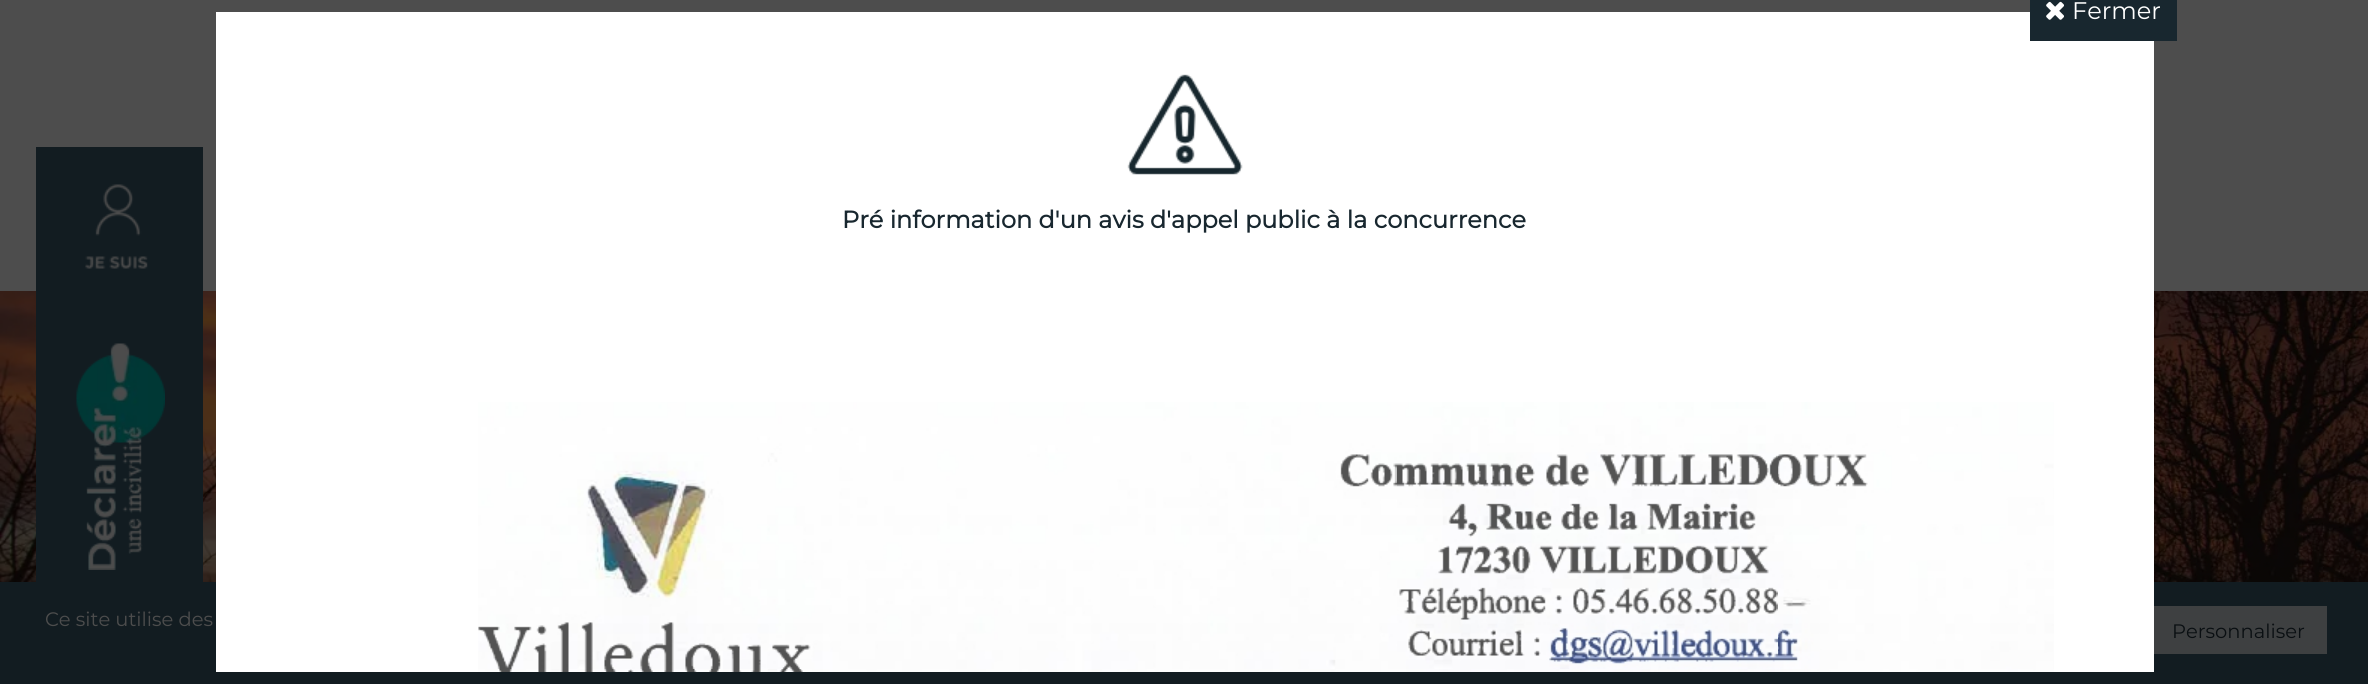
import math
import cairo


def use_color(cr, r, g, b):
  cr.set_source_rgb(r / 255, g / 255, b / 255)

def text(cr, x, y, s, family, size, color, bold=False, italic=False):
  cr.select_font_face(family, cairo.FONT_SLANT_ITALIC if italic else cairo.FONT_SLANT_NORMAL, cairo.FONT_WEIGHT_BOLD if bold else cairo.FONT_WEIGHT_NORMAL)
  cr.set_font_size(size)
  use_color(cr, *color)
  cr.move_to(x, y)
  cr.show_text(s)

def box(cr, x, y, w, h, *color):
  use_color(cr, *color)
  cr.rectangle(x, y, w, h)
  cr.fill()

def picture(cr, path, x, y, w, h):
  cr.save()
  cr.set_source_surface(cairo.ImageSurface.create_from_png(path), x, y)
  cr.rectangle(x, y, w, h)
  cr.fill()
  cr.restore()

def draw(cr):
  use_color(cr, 77, 77, 77)
  cr.paint()
  picture(cr, "img_06.png", 0, 291, 2368, 291)
  box(cr, 0, 582, 2368, 102, 18, 28, 33)
  box(cr, 216, 12, 1938, 660, 255, 255, 255)
  box(cr, 2030, 0, 147, 41, 24, 39, 47)
  picture(cr, "img_01.png", 2046, 1, 18, 19)
  picture(cr, "img_02.png", 1127, 74, 116, 101)
  picture(cr, "img_03.png", 478, 402, 1576, 270)
  box(cr, 36, 147, 167, 435, 18, 28, 33)
  picture(cr, "img_04.png", 85, 184, 63, 85)
  picture(cr, "img_05.png", 76, 343, 89, 227)
  box(cr, 2154, 606, 173, 48, 62, 64, 65)
  text(cr, 2072, 19, "Fermer", "Montserrat Thin", 24, (255, 255, 255))
  text(cr, 842, 228, "Pré information d'un avis d'appel public à la concurrence", "Montserrat", 24, (24, 39, 47), bold=True)
  text(cr, 45, 626, "Ce site utilise des", "Montserrat Thin", 19.5, (77, 77, 77))
  text(cr, 2172, 638, "Personnaliser", "Montserrat Thin", 19.5, (10, 15, 18))


surface = cairo.ImageSurface(cairo.FORMAT_RGB24, 2368, 684)
cr = cairo.Context(surface)
options = cairo.FontOptions()
options.set_hint_metrics(cairo.HINT_METRICS_OFF)
options.set_hint_style(cairo.HINT_STYLE_NONE)
cr.set_font_options(options)
cr.set_miter_limit(4)
draw(cr)
surface.write_to_png("out.png")
